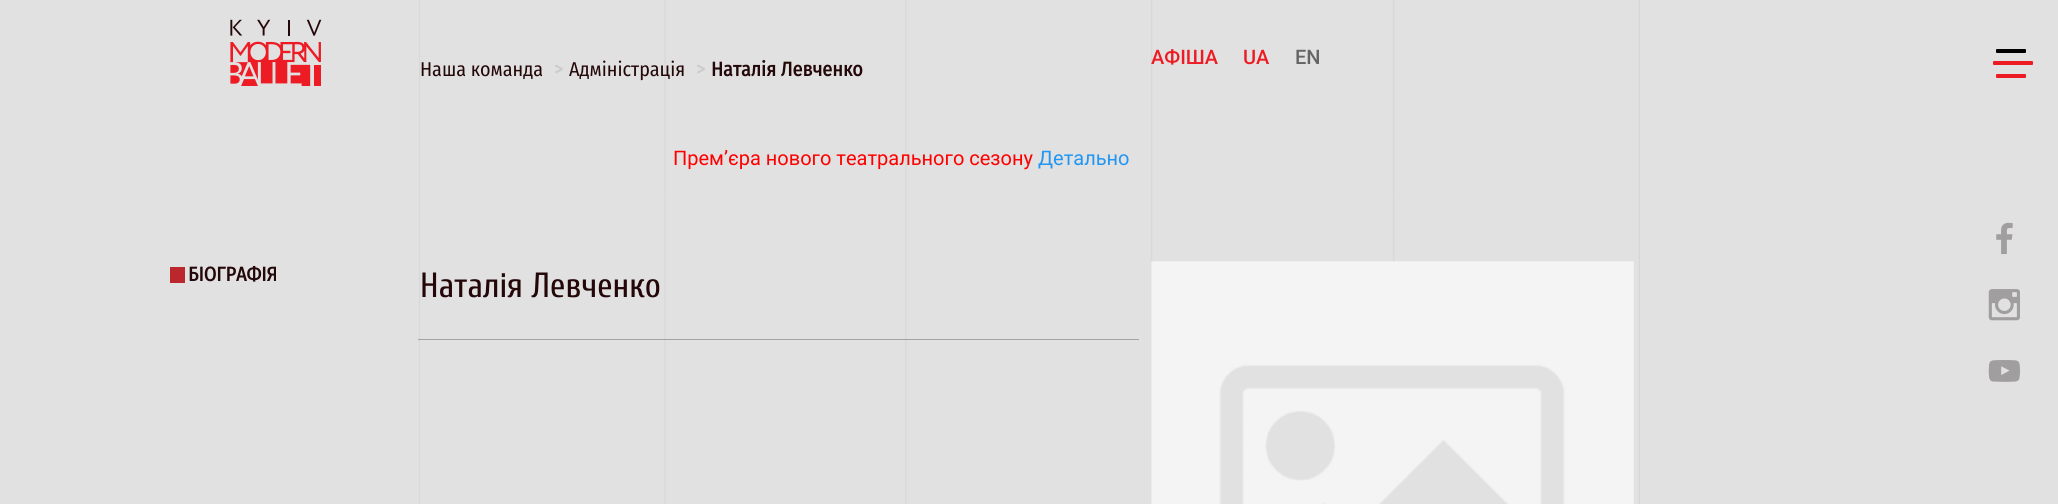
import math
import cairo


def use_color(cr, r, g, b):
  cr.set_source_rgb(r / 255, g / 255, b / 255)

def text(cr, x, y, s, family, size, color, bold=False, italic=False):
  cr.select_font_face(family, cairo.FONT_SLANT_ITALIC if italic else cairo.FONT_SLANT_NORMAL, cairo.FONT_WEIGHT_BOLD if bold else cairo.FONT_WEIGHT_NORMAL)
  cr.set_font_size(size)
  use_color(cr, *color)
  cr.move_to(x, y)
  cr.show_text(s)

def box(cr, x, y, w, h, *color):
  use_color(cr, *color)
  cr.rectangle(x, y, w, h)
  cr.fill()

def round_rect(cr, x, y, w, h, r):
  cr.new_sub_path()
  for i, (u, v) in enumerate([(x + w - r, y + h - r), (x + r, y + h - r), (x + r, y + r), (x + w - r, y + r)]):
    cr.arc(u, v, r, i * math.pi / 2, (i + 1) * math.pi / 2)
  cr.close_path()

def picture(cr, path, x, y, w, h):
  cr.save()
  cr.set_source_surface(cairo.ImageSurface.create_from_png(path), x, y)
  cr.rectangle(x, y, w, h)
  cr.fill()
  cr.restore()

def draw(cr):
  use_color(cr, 225, 225, 225)
  cr.paint()
  picture(cr, "img_01.png", 419, 0, 1221, 145)
  picture(cr, "img_02.png", 230, 19, 92, 67)
  use_color(cr, 0, 0, 0)
  round_rect(cr, 1996, 49, 30, 4, 1)
  cr.fill()
  use_color(cr, 237, 28, 36)
  round_rect(cr, 1993, 61, 40, 4, 1)
  cr.fill()
  round_rect(cr, 1996, 74, 30, 4, 1)
  cr.fill()
  picture(cr, "img_03.png", 1996, 222, 17, 33)
  picture(cr, "img_04.png", 1988, 289, 32, 32)
  picture(cr, "img_05.png", 1988, 360, 32, 22)
  picture(cr, "img_06.png", 419, 145, 1221, 54)
  picture(cr, "img_07.png", 419, 199, 1221, 305)
  box(cr, 170, 267, 15, 16, 187, 39, 45)
  box(cr, 418, 339, 721, 1, 163, 163, 163)
  picture(cr, "img_08.png", 1151, 261, 483, 243)
  text(cr, 1151, 64, "АФІША", "Roboto Medium", 20, (237, 28, 36))
  text(cr, 1243, 64, "UA", "Roboto Medium", 20, (237, 28, 36))
  text(cr, 1295, 64, "EN", "Roboto Medium", 20, (101, 101, 101))
  text(cr, 420, 76, "Наша команда", "Fira Sans Condensed", 20, (36, 7, 8))
  text(cr, 554, 76, ">", "Fira Sans Condensed", 20, (204, 204, 204), bold=True)
  text(cr, 569, 76, "Адміністрація", "Fira Sans Condensed", 20, (36, 7, 8))
  text(cr, 696, 76, ">", "Fira Sans Condensed", 20, (204, 204, 204), bold=True)
  text(cr, 711, 76, "Наталія Левченко", "Fira Sans Condensed", 20, (36, 7, 8), bold=True)
  text(cr, 673, 165, "Прем’єра нового театрального сезону", "Roboto", 20, (255, 0, 0))
  text(cr, 1038, 165, "Детально", "Roboto", 20, (33, 150, 243))
  text(cr, 188, 281, "БІОГРАФІЯ", "Fira Sans Condensed", 20, (36, 7, 8), bold=True)
  text(cr, 420, 297, "Наталія Левченко", "Cuprum", 35, (36, 7, 8))


surface = cairo.ImageSurface(cairo.FORMAT_RGB24, 2058, 504)
cr = cairo.Context(surface)
options = cairo.FontOptions()
options.set_hint_metrics(cairo.HINT_METRICS_OFF)
options.set_hint_style(cairo.HINT_STYLE_NONE)
cr.set_font_options(options)
cr.set_miter_limit(4)
draw(cr)
surface.write_to_png("out.png")
